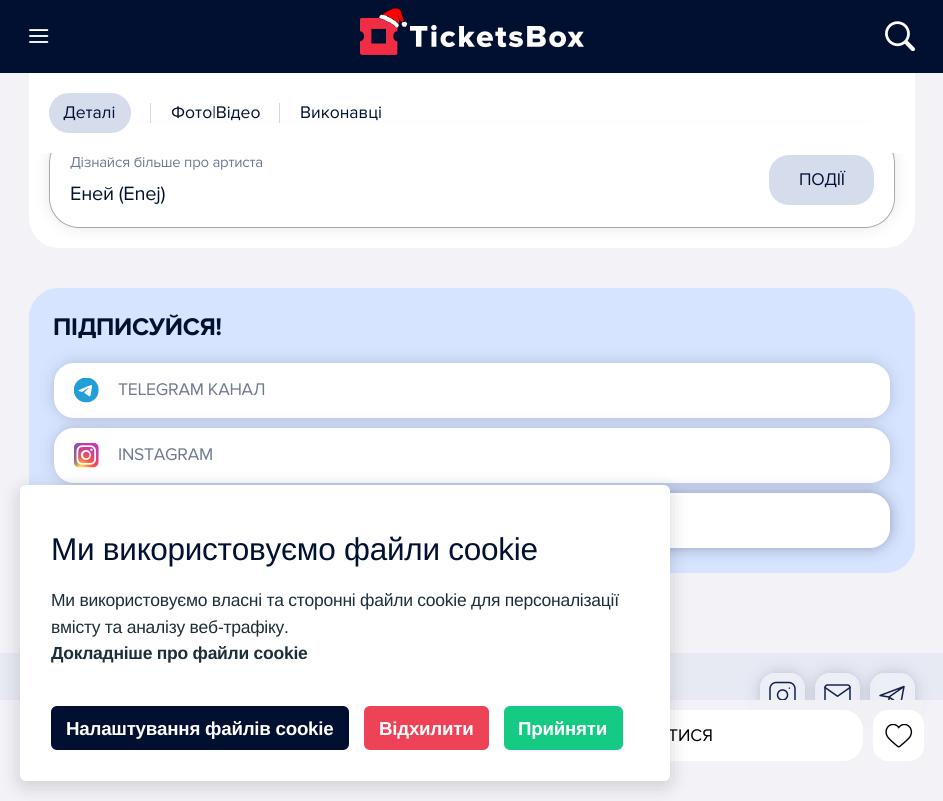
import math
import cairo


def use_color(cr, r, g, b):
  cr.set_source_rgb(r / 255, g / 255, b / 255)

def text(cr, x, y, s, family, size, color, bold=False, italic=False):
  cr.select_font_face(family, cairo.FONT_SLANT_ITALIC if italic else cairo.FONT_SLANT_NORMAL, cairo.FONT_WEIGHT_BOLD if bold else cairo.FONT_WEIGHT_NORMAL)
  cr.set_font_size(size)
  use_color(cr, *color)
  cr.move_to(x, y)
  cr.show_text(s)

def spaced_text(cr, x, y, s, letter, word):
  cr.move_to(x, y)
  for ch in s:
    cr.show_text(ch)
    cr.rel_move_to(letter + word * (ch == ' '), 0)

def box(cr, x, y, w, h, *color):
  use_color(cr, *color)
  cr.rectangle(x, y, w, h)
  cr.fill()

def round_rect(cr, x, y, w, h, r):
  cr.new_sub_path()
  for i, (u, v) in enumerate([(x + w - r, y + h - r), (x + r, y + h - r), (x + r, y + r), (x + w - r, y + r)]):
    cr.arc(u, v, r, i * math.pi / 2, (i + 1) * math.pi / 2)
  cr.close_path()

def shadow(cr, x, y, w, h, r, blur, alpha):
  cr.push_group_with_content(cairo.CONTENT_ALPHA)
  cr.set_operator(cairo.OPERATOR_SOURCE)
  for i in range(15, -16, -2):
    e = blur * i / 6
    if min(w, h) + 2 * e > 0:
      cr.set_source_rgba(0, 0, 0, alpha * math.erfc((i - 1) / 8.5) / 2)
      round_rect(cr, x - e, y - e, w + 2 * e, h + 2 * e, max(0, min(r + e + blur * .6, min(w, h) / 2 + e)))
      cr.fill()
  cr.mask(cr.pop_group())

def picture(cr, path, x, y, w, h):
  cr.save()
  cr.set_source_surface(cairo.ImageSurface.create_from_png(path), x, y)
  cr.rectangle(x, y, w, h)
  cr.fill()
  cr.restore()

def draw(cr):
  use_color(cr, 242, 242, 247)
  cr.paint()
  use_color(cr, 255, 255, 255)
  round_rect(cr, 29, -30, 886, 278, 30)
  cr.fill()
  box(cr, 0, 0, 943, 73, 1, 16, 49)
  picture(cr, "img_02.png", 360, 18, 224, 37)
  picture(cr, "img_01.png", 379, 8, 29, 20)
  picture(cr, "img_03.png", 29, 29, 20, 14)
  picture(cr, "img_04.png", 885, 21, 30, 30)
  cr.save()
  cr.set_fill_rule(cairo.FILL_RULE_EVEN_ODD)
  cr.new_path()
  cr.move_to(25, 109)
  cr.line_to(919, 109)
  cr.line_to(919, 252)
  cr.line_to(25, 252)
  cr.close_path()
  cr.move_to(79, 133)
  cr.line_to(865, 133)
  cr.curve_to(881.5, 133, 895, 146.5, 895, 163)
  cr.line_to(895, 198)
  cr.curve_to(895, 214.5, 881.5, 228, 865, 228)
  cr.line_to(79, 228)
  cr.curve_to(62.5, 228, 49, 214.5, 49, 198)
  cr.line_to(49, 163)
  cr.curve_to(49, 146.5, 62.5, 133, 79, 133)
  cr.close_path()
  cr.clip()
  use_color(cr, 0, 0, 0)
  shadow(cr, 49, 133, 846, 95, 30, 7.5, 0.1)
  cr.restore()
  round_rect(cr, 49.5, 133.5, 845, 94, 29.5)
  use_color(cr, 167, 168, 173)
  cr.set_line_width(1)
  cr.stroke()
  box(cr, 42, 123, 860, 30, 255, 255, 255)
  use_color(cr, 213, 221, 237)
  round_rect(cr, 49, 93, 82, 40, 20)
  cr.fill()
  box(cr, 150, 103, 1, 20, 209, 214, 226)
  box(cr, 279, 103, 1, 20, 209, 214, 226)
  use_color(cr, 213, 221, 237)
  round_rect(cr, 769, 155, 105, 50, 20)
  cr.fill()
  use_color(cr, 215, 228, 255)
  round_rect(cr, 29, 288, 886, 285, 30)
  cr.fill()
  use_color(cr, 16, 32, 74)
  shadow(cr, 54, 363, 836, 55, 20, 7.5, 0.2)
  use_color(cr, 255, 255, 255)
  round_rect(cr, 54, 363, 836, 55, 20)
  cr.fill()
  picture(cr, "img_05.png", 74, 378, 25, 25)
  use_color(cr, 16, 32, 74)
  shadow(cr, 54, 428, 836, 55, 20, 7.5, 0.2)
  use_color(cr, 255, 255, 255)
  round_rect(cr, 54, 428, 836, 55, 20)
  cr.fill()
  picture(cr, "img_06.png", 74, 443, 25, 25)
  use_color(cr, 16, 32, 74)
  shadow(cr, 54, 493, 836, 55, 20, 7.5, 0.2)
  shadow(cr, 54, 493, 836, 55, 20, 7.5, 0.2)
  use_color(cr, 255, 255, 255)
  round_rect(cr, 54, 493, 836, 55, 20)
  cr.fill()
  box(cr, 0, 653, 943, 47, 231, 234, 243)
  cr.save()
  cr.set_fill_rule(cairo.FILL_RULE_EVEN_ODD)
  cr.new_path()
  cr.move_to(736, 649)
  cr.line_to(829, 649)
  cr.line_to(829, 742)
  cr.line_to(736, 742)
  cr.close_path()
  cr.move_to(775, 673)
  cr.line_to(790, 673)
  cr.curve_to(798.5, 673, 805, 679.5, 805, 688)
  cr.line_to(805, 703)
  cr.curve_to(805, 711.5, 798.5, 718, 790, 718)
  cr.line_to(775, 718)
  cr.curve_to(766.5, 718, 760, 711.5, 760, 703)
  cr.line_to(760, 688)
  cr.curve_to(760, 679.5, 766.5, 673, 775, 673)
  cr.close_path()
  cr.clip()
  use_color(cr, 16, 32, 74)
  shadow(cr, 760, 673, 45, 45, 15, 7.5, 0.2)
  cr.restore()
  cr.set_source_rgba(1, 1, 1, 0.24)
  round_rect(cr, 760, 673, 45, 45, 15)
  cr.fill()
  picture(cr, "img_08.png", 769, 681, 27, 19)
  cr.save()
  cr.set_fill_rule(cairo.FILL_RULE_EVEN_ODD)
  cr.new_path()
  cr.move_to(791, 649)
  cr.line_to(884, 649)
  cr.line_to(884, 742)
  cr.line_to(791, 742)
  cr.close_path()
  cr.move_to(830, 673)
  cr.line_to(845, 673)
  cr.curve_to(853.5, 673, 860, 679.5, 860, 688)
  cr.line_to(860, 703)
  cr.curve_to(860, 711.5, 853.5, 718, 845, 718)
  cr.line_to(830, 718)
  cr.curve_to(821.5, 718, 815, 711.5, 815, 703)
  cr.line_to(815, 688)
  cr.curve_to(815, 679.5, 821.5, 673, 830, 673)
  cr.close_path()
  cr.clip()
  use_color(cr, 16, 32, 74)
  shadow(cr, 815, 673, 45, 45, 15, 7.5, 0.2)
  cr.restore()
  round_rect(cr, 815, 673, 45, 45, 15)
  cr.fill()
  picture(cr, "img_09.png", 824, 684, 27, 16)
  cr.save()
  cr.set_fill_rule(cairo.FILL_RULE_EVEN_ODD)
  cr.new_path()
  cr.move_to(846, 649)
  cr.line_to(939, 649)
  cr.line_to(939, 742)
  cr.line_to(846, 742)
  cr.close_path()
  cr.move_to(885, 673)
  cr.line_to(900, 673)
  cr.curve_to(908.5, 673, 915, 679.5, 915, 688)
  cr.line_to(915, 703)
  cr.curve_to(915, 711.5, 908.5, 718, 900, 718)
  cr.line_to(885, 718)
  cr.curve_to(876.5, 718, 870, 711.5, 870, 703)
  cr.line_to(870, 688)
  cr.curve_to(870, 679.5, 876.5, 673, 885, 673)
  cr.close_path()
  cr.clip()
  use_color(cr, 16, 32, 74)
  shadow(cr, 870, 673, 45, 45, 15, 7.5, 0.2)
  cr.restore()
  round_rect(cr, 870, 673, 45, 45, 15)
  cr.fill()
  cr.new_path()
  cr.move_to(904, 686.5)
  cr.line_to(880, 695.5)
  cr.line_to(889, 697)
  cr.move_to(904, 686.5)
  cr.line_to(900.5, 705)
  cr.line_to(889, 697)
  cr.move_to(904, 686.5)
  cr.line_to(889, 697)
  cr.move_to(889, 697)
  cr.line_to(889, 703.5)
  cr.line_to(893, 699.5)
  use_color(cr, 16, 32, 74)
  cr.set_line_width(1.5)
  cr.set_line_cap(cairo.LINE_CAP_ROUND)
  cr.set_line_join(cairo.LINE_JOIN_ROUND)
  cr.stroke()
  box(cr, 751, 700, 173, 27, 240, 240, 245)
  use_color(cr, 255, 255, 255)
  round_rect(cr, 451, 710, 412, 51, 20)
  cr.fill()
  round_rect(cr, 873, 710, 51, 51, 15)
  cr.fill()
  picture(cr, "img_07.png", 885, 724, 28, 24)
  use_color(cr, 0, 0, 0)
  shadow(cr, 20, 490, 650, 296, 6, 10, 0.16)
  text(cr, 63, 118, "Деталі", "Proxima Nova", 17.5, (1, 17, 49))
  text(cr, 171, 118, "Фото|Відео", "Proxima Nova", 17.5, (1, 17, 49))
  text(cr, 300, 118, "Виконавці", "Proxima Nova", 17.5, (1, 17, 49))
  cr.set_font_size(15)
  use_color(cr, 112, 121, 146)
  spaced_text(cr, 70, 167, "Дізнайся більше про артиста", -0.25, 0)
  cr.set_font_size(20)
  use_color(cr, 1, 17, 49)
  spaced_text(cr, 70, 200, "Еней (Enej)", -0.25, 0)
  cr.set_font_size(17.5)
  spaced_text(cr, 799, 185, "ПОДІЇ", -0.25, 0)
  cr.select_font_face("Proxima Nova", cairo.FONT_SLANT_NORMAL, cairo.FONT_WEIGHT_BOLD)
  cr.set_font_size(25)
  spaced_text(cr, 53, 335, "ПІДПИСУЙСЯ!", -0.25, 0)
  cr.select_font_face("Proxima Nova")
  cr.set_font_size(17.5)
  use_color(cr, 112, 121, 146)
  spaced_text(cr, 118, 395, "TELEGRAM КАНАЛ", -0.25, 0)
  spaced_text(cr, 118, 460, "INSTAGRAM", -0.25, 0)
  text(cr, 668, 741, "ТИСЯ", "Proxima Nova", 17.5, (0, 0, 0))
  use_color(cr, 255, 255, 255)
  round_rect(cr, 20, 485, 650, 296, 6)
  cr.fill()
  cr.select_font_face("Liberation Sans")
  cr.set_font_size(31.5)
  use_color(cr, 1, 17, 49)
  spaced_text(cr, 51, 560, "Ми використовуємо файли cookie", -0.25, 0)
  cr.set_font_size(17.5)
  use_color(cr, 29, 46, 56)
  spaced_text(cr, 51, 606, "Ми використовуємо власні та сторонні файли cookie для персоналізації", -0.25, 0)
  spaced_text(cr, 51, 633, "вмісту та аналізу веб-трафіку.", -0.25, 0)
  cr.select_font_face("Liberation Sans", cairo.FONT_SLANT_NORMAL, cairo.FONT_WEIGHT_BOLD)
  spaced_text(cr, 51, 659, "Докладніше про файли cookie", -0.25, 0)
  use_color(cr, 1, 16, 49)
  round_rect(cr, 51, 706, 298, 44, 6)
  cr.fill()
  cr.set_font_size(18.75)
  use_color(cr, 255, 255, 255)
  spaced_text(cr, 66, 735, "Налаштування файлів cookie", -0.25, 0)
  use_color(cr, 238, 66, 86)
  round_rect(cr, 364, 706, 125, 44, 6)
  cr.fill()
  use_color(cr, 255, 255, 255)
  spaced_text(cr, 379, 735, "Відхилити", -0.25, 0)
  use_color(cr, 21, 203, 132)
  round_rect(cr, 504, 706, 119, 44, 6)
  cr.fill()
  use_color(cr, 255, 255, 255)
  spaced_text(cr, 518, 735, "Прийняти", -0.25, 0)


surface = cairo.ImageSurface(cairo.FORMAT_RGB24, 943, 801)
cr = cairo.Context(surface)
options = cairo.FontOptions()
options.set_hint_metrics(cairo.HINT_METRICS_OFF)
options.set_hint_style(cairo.HINT_STYLE_NONE)
cr.set_font_options(options)
cr.set_miter_limit(4)
draw(cr)
surface.write_to_png("out.png")
